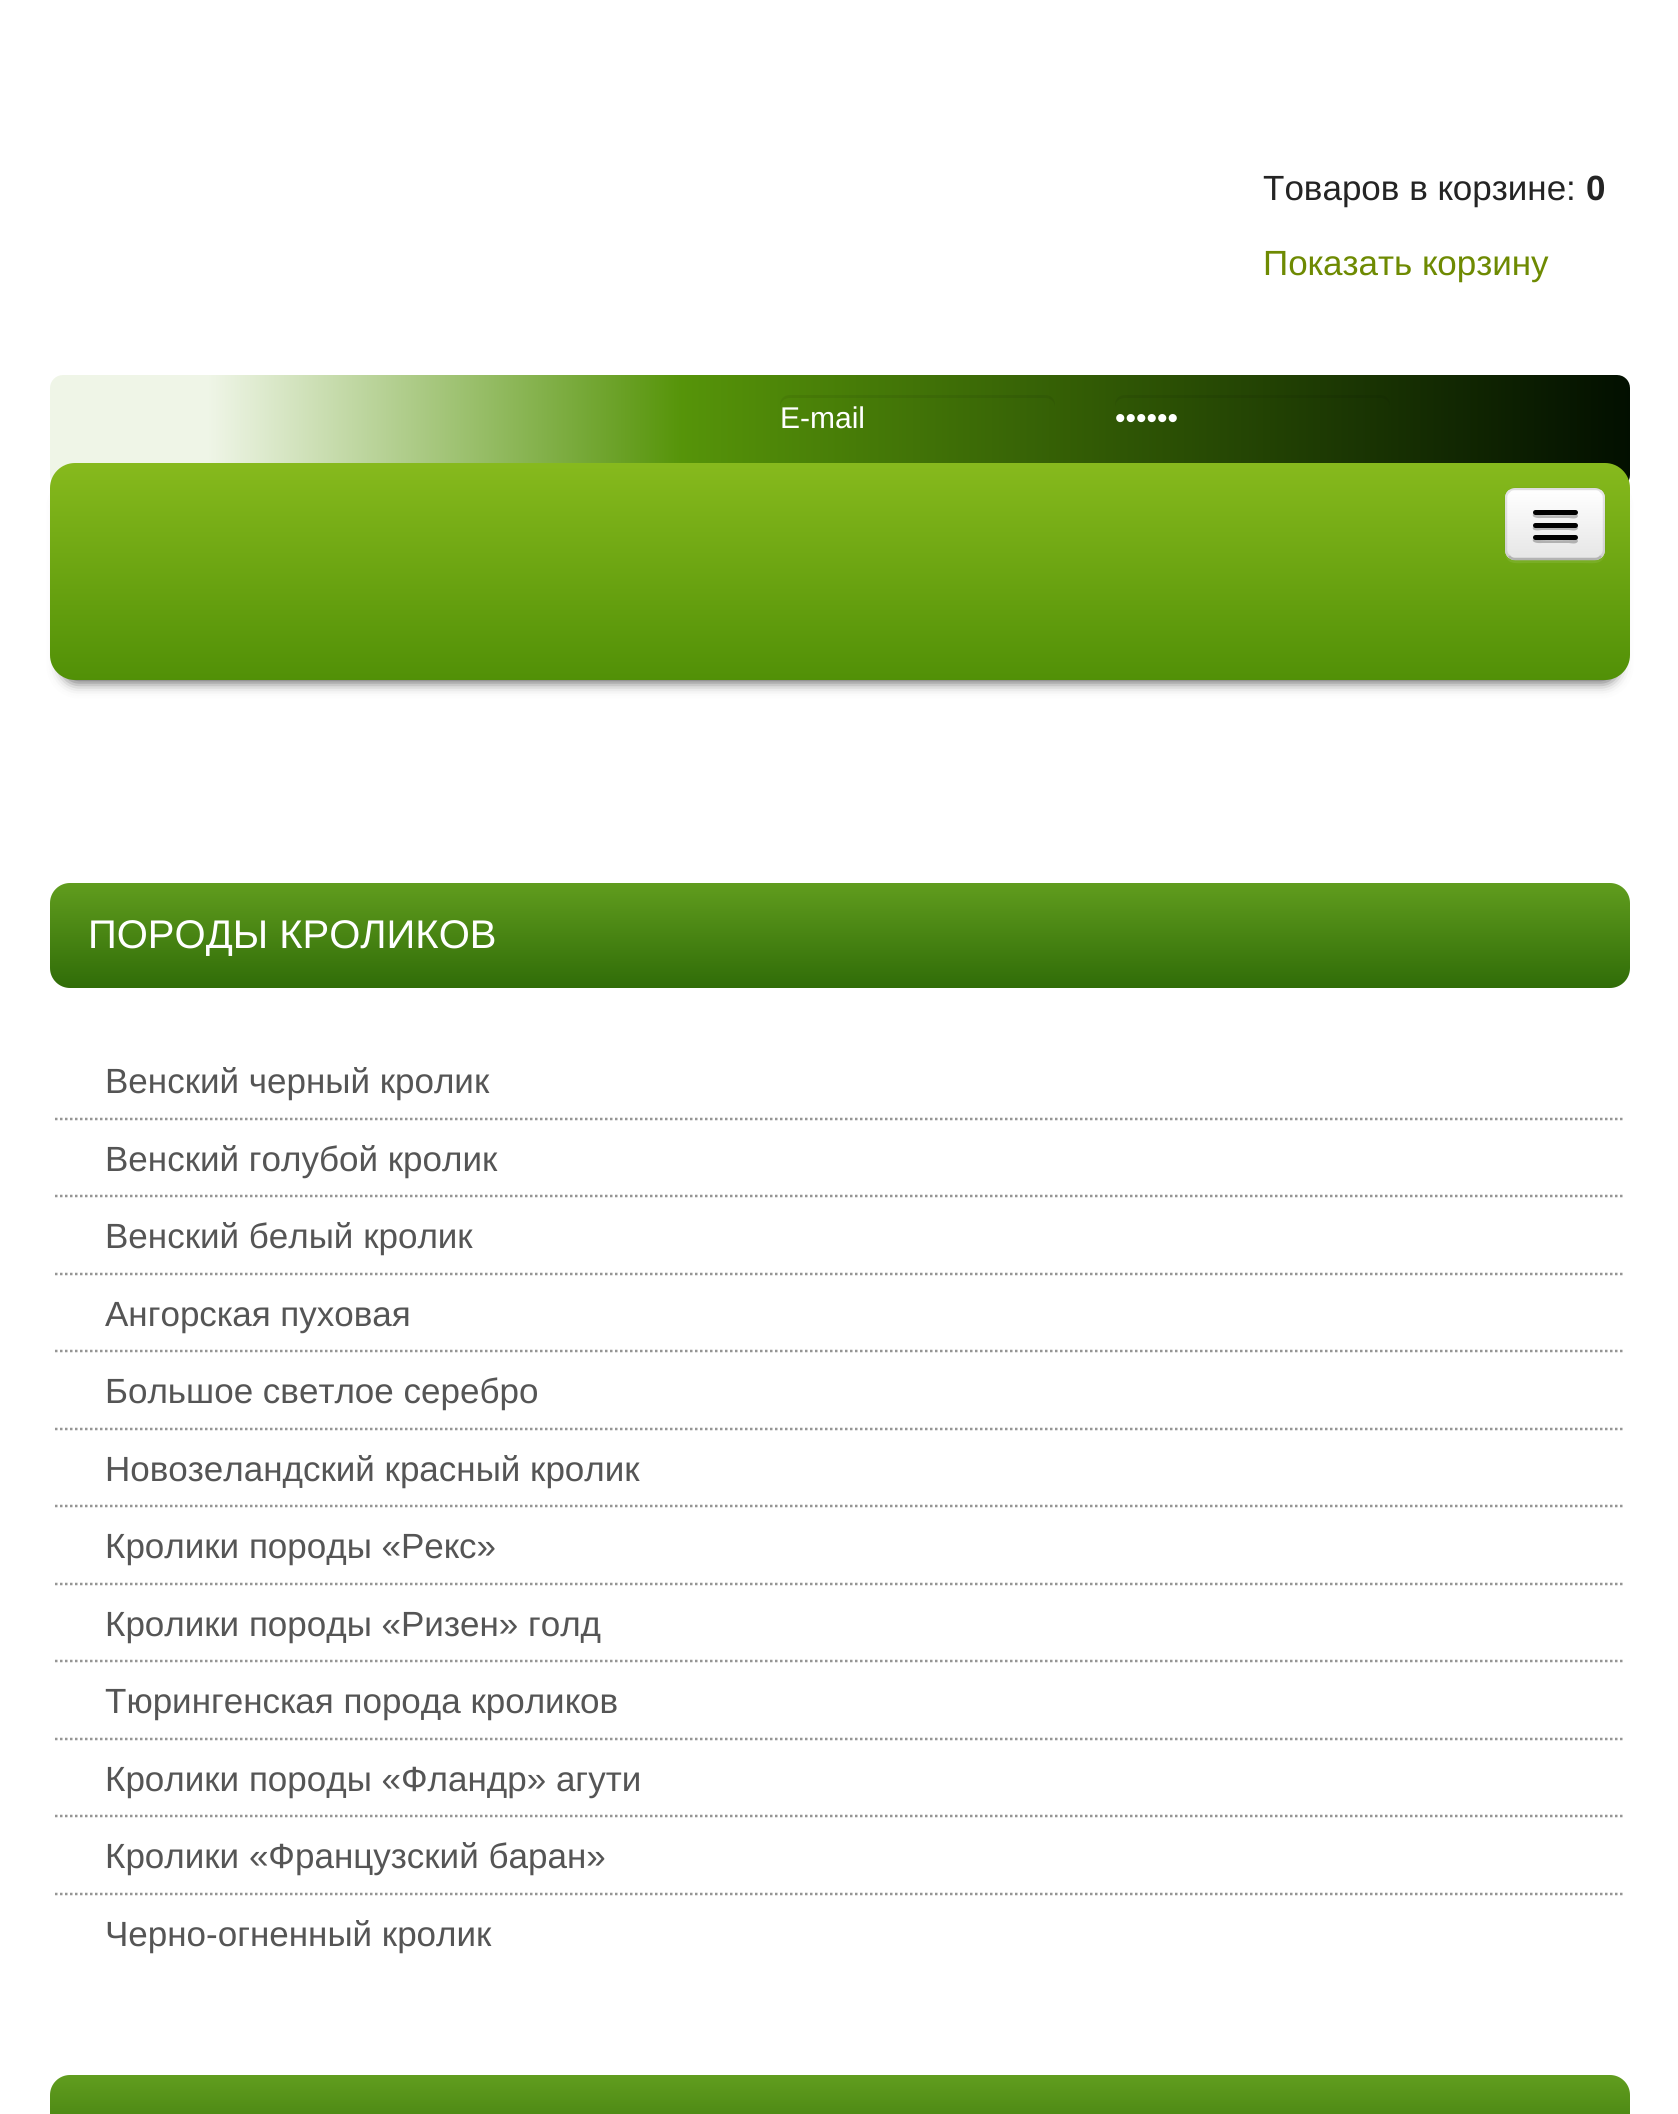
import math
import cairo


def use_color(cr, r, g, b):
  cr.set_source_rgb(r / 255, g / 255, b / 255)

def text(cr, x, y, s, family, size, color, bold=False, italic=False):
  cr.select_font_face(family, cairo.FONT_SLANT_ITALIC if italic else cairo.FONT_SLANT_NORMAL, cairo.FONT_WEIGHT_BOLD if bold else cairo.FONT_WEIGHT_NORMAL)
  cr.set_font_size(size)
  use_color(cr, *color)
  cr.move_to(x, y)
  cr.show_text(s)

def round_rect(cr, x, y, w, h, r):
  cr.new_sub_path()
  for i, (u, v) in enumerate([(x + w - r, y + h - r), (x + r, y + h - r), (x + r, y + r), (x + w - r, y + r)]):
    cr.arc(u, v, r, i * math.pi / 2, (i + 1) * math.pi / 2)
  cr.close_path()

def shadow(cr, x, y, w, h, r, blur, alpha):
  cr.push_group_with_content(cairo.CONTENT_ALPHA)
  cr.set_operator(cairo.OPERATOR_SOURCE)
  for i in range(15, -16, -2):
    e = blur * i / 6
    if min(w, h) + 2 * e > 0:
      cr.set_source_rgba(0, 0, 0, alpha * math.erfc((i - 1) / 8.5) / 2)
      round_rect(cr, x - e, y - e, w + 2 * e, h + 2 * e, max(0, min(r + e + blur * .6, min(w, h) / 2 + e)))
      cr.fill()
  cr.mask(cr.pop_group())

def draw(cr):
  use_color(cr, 255, 255, 255)
  cr.paint()
  gradient = cairo.LinearGradient(50, 431, 1630, 431)
  gradient.add_color_stop_rgba(0.1, 0.937, 0.961, 0.906, 1)
  gradient.add_color_stop_rgba(0.4, 0.337, 0.58, 0.035, 1)
  gradient.add_color_stop_rgba(1, 0.008, 0.059, 0, 1)
  cr.set_source(gradient)
  round_rect(cr, 50, 375, 1580, 113, 13)
  cr.fill()
  cr.set_source_rgba(0, 0, 0, 0.07)
  cr.new_path()
  cr.move_to(790, 398)
  cr.line_to(1045, 398)
  cr.curve_to(1051, 398, 1055, 402, 1055, 408)
  cr.line_to(1055, 405)
  cr.curve_to(1055, 399, 1051, 395, 1045, 395)
  cr.line_to(790, 395)
  cr.curve_to(784, 395, 780, 399, 780, 405)
  cr.line_to(780, 408)
  cr.curve_to(780, 402, 784, 398, 790, 398)
  cr.close_path()
  cr.fill()
  cr.new_path()
  cr.move_to(1125, 398)
  cr.line_to(1380, 398)
  cr.curve_to(1386, 398, 1390, 402, 1390, 408)
  cr.line_to(1390, 405)
  cr.curve_to(1390, 399, 1386, 395, 1380, 395)
  cr.line_to(1125, 395)
  cr.curve_to(1119, 395, 1115, 399, 1115, 405)
  cr.line_to(1115, 408)
  cr.curve_to(1115, 402, 1119, 398, 1125, 398)
  cr.close_path()
  cr.fill()
  use_color(cr, 0, 0, 0)
  shadow(cr, 65, 493, 1550, 187, 10, 7.5, 0.85)
  gradient = cairo.LinearGradient(840, 462, 840, 680)
  gradient.add_color_stop_rgba(0, 0.529, 0.729, 0.114, 1)
  gradient.add_color_stop_rgba(1, 0.318, 0.565, 0.027, 1)
  cr.set_source(gradient)
  round_rect(cr, 50, 463, 1580, 217, 25)
  cr.fill()
  use_color(cr, 121, 174, 37)
  cr.new_path()
  cr.move_to(1505, 550)
  cr.curve_to(1505, 566, 1516, 563, 1528, 563)
  cr.line_to(1582, 563)
  cr.curve_to(1594, 563, 1605, 566, 1605, 550)
  cr.curve_to(1605, 556, 1601, 560, 1595, 560)
  cr.line_to(1515, 560)
  cr.curve_to(1509, 560, 1505, 556, 1505, 550)
  cr.close_path()
  cr.fill()
  use_color(cr, 245, 245, 245)
  round_rect(cr, 1505, 488, 100, 72, 10)
  cr.fill()
  cr.save()
  round_rect(cr, 1505, 488, 100, 72, 10)
  cr.clip()
  gradient = cairo.LinearGradient(1555, 490, 1555, 558)
  gradient.add_color_stop_rgba(0, 1, 1, 1, 1)
  gradient.add_color_stop_rgba(1, 0.902, 0.902, 0.902, 1)
  cr.set_source(gradient)
  cr.rectangle(1505, 490, 100, 68)
  cr.fill()
  cr.restore()
  cr.new_path()
  cr.move_to(1601, 556)
  cr.curve_to(1599.5, 558, 1597.5, 559, 1595, 559)
  cr.line_to(1515, 559)
  cr.curve_to(1512.5, 559, 1510.5, 558, 1509, 556)
  use_color(cr, 179, 179, 179)
  cr.set_line_width(2.5)
  cr.stroke()
  cr.new_path()
  cr.move_to(1509, 556)
  cr.curve_to(1507, 554.5, 1506, 552.5, 1506, 550)
  cr.line_to(1506, 497.5)
  cr.curve_to(1506, 495, 1507, 493, 1509, 491.5)
  cr.curve_to(1510.5, 489.5, 1512.5, 489, 1515, 489)
  cr.line_to(1595, 489)
  cr.curve_to(1597.5, 489, 1599.5, 489.5, 1601, 491.5)
  cr.curve_to(1603, 493, 1604, 495, 1604, 497.5)
  cr.line_to(1604, 550)
  cr.curve_to(1604, 552.5, 1603, 554.5, 1601, 556)
  cr.set_source_rgba(0, 0, 0, 0.1)
  cr.stroke()
  use_color(cr, 184, 184, 184)
  cr.new_path()
  cr.move_to(1533, 514)
  cr.curve_to(1531, 519, 1542, 518, 1542, 518)
  cr.line_to(1569, 518)
  cr.curve_to(1570, 518, 1577, 520, 1578, 516)
  cr.line_to(1577, 514)
  cr.line_to(1575, 515)
  cr.curve_to(1572, 515, 1535, 516, 1533, 514)
  cr.close_path()
  cr.fill()
  use_color(cr, 0, 0, 0)
  round_rect(cr, 1533, 510, 45, 5, 2.5)
  cr.fill()
  use_color(cr, 181, 181, 181)
  cr.new_path()
  cr.move_to(1533, 527)
  cr.curve_to(1531, 532, 1541, 530, 1542, 530)
  cr.line_to(1569, 530)
  cr.curve_to(1570, 530, 1577, 532, 1578, 528)
  cr.line_to(1577, 526)
  cr.line_to(1575, 527)
  cr.line_to(1535, 527)
  cr.close_path()
  cr.fill()
  use_color(cr, 0, 0, 0)
  round_rect(cr, 1533, 523, 45, 5, 2.5)
  cr.fill()
  use_color(cr, 177, 177, 177)
  cr.new_path()
  cr.move_to(1533, 539)
  cr.curve_to(1531, 544, 1542, 543, 1542, 543)
  cr.line_to(1569, 543)
  cr.curve_to(1570, 543, 1577, 545, 1578, 541)
  cr.line_to(1577, 539)
  cr.line_to(1575, 540)
  cr.curve_to(1572, 540, 1535, 541, 1533, 539)
  cr.close_path()
  cr.fill()
  use_color(cr, 0, 0, 0)
  round_rect(cr, 1533, 535, 45, 5, 2.5)
  cr.fill()
  gradient = cairo.LinearGradient(840, 882, 840, 988)
  gradient.add_color_stop_rgba(0, 0.38, 0.616, 0.118, 1)
  gradient.add_color_stop_rgba(1, 0.188, 0.424, 0.031, 1)
  cr.set_source(gradient)
  round_rect(cr, 50, 883, 1580, 105, 20)
  cr.fill()
  cr.new_path()
  cr.move_to(55, 1119)
  cr.line_to(1625, 1119)
  use_color(cr, 149, 149, 148)
  cr.set_dash([2.5, 2.5])
  cr.stroke()
  cr.new_path()
  cr.move_to(55, 1196)
  cr.line_to(1625, 1196)
  cr.stroke()
  cr.new_path()
  cr.move_to(55, 1274)
  cr.line_to(1625, 1274)
  cr.stroke()
  cr.new_path()
  cr.move_to(55, 1351)
  cr.line_to(1625, 1351)
  cr.stroke()
  cr.new_path()
  cr.move_to(55, 1429)
  cr.line_to(1625, 1429)
  cr.stroke()
  cr.new_path()
  cr.move_to(55, 1506)
  cr.line_to(1625, 1506)
  cr.stroke()
  cr.new_path()
  cr.move_to(55, 1584)
  cr.line_to(1625, 1584)
  cr.stroke()
  cr.new_path()
  cr.move_to(55, 1661)
  cr.line_to(1625, 1661)
  cr.stroke()
  cr.new_path()
  cr.move_to(55, 1739)
  cr.line_to(1625, 1739)
  cr.stroke()
  cr.new_path()
  cr.move_to(55, 1816)
  cr.line_to(1625, 1816)
  cr.stroke()
  cr.new_path()
  cr.move_to(55, 1894)
  cr.line_to(1625, 1894)
  cr.stroke()
  gradient = cairo.LinearGradient(840, 2075, 840, 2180)
  gradient.add_color_stop_rgba(0, 0.38, 0.616, 0.118, 1)
  gradient.add_color_stop_rgba(1, 0.188, 0.424, 0.031, 1)
  cr.set_source(gradient)
  round_rect(cr, 50, 2075, 1580, 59, 20)
  cr.fill()
  text(cr, 1263, 200, "Товаров в корзине:", "Liberation Sans", 35, (36, 36, 36))
  text(cr, 1586, 200, "0", "Liberation Sans", 35, (36, 36, 36), bold=True)
  text(cr, 1263, 275, "Показать корзину", "Liberation Sans", 35, (110, 138, 2))
  text(cr, 780, 428, "E-mail", "Liberation Sans", 30, (255, 255, 255))
  text(cr, 1115, 428, "••••••", "Liberation Sans", 30, (255, 255, 255))
  text(cr, 88, 948, "ПОРОДЫ КРОЛИКОВ", "Liberation Sans", 40, (255, 255, 255))
  text(cr, 105, 1093, "Венский черный кролик", "Liberation Sans", 35, (85, 85, 85))
  text(cr, 105, 1171, "Венский голубой кролик", "Liberation Sans", 35, (85, 85, 85))
  text(cr, 105, 1248, "Венский белый кролик", "Liberation Sans", 35, (85, 85, 85))
  text(cr, 105, 1326, "Ангорская пуховая", "Liberation Sans", 35, (85, 85, 85))
  text(cr, 105, 1403, "Большое светлое серебро", "Liberation Sans", 35, (85, 85, 85))
  text(cr, 105, 1481, "Новозеландский красный кролик", "Liberation Sans", 35, (85, 85, 85))
  text(cr, 105, 1558, "Кролики породы «Рекс»", "Liberation Sans", 35, (85, 85, 85))
  text(cr, 105, 1636, "Кролики породы «Ризен» голд", "Liberation Sans", 35, (85, 85, 85))
  text(cr, 105, 1713, "Тюрингенская порода кроликов", "Liberation Sans", 35, (85, 85, 85))
  text(cr, 105, 1791, "Кролики породы «Фландр» агути", "Liberation Sans", 35, (85, 85, 85))
  text(cr, 105, 1868, "Кролики «Французский баран»", "Liberation Sans", 35, (85, 85, 85))
  text(cr, 105, 1946, "Черно-огненный кролик", "Liberation Sans", 35, (85, 85, 85))


surface = cairo.ImageSurface(cairo.FORMAT_RGB24, 1678, 2114)
cr = cairo.Context(surface)
options = cairo.FontOptions()
options.set_hint_metrics(cairo.HINT_METRICS_OFF)
options.set_hint_style(cairo.HINT_STYLE_NONE)
cr.set_font_options(options)
cr.set_miter_limit(4)
draw(cr)
surface.write_to_png("out.png")
